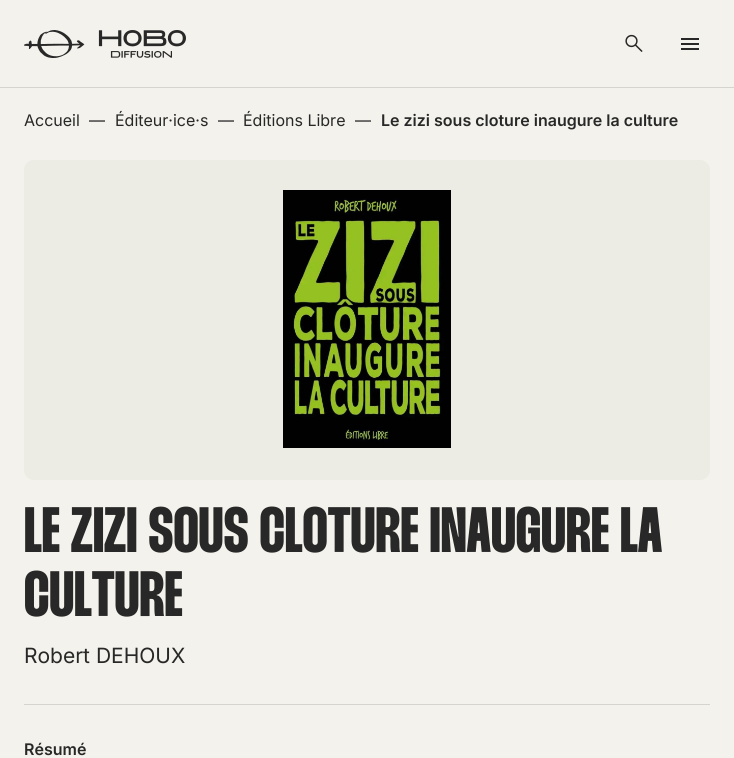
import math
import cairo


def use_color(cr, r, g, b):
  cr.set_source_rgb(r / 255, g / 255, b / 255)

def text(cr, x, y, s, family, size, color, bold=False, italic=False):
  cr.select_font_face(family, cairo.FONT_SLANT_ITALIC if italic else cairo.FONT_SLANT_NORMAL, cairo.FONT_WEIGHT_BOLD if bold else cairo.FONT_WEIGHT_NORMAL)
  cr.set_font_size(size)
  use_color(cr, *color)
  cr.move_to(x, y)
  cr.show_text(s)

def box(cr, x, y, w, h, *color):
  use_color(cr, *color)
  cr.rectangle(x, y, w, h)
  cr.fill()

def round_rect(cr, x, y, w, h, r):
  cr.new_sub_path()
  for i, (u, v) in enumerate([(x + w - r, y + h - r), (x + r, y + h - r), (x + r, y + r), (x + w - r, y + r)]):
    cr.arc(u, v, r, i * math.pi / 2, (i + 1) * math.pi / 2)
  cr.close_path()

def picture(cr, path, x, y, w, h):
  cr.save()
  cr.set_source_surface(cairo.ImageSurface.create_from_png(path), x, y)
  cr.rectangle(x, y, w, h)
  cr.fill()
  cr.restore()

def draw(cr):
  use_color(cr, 243, 242, 236)
  cr.paint()
  box(cr, 0, 87, 734, 1, 213, 212, 207)
  picture(cr, "img_01.png", 24, 30, 162, 28)
  picture(cr, "img_02.png", 625, 34, 18, 18)
  box(cr, 681, 38, 18, 2, 40, 40, 40)
  box(cr, 681, 43, 18, 2, 40, 40, 40)
  box(cr, 681, 48, 18, 2, 40, 40, 40)
  use_color(cr, 236, 235, 228)
  round_rect(cr, 24, 160, 686, 320, 10)
  cr.fill()
  picture(cr, "img_03.png", 283, 190, 168, 258)
  box(cr, 24, 704, 686, 1, 213, 212, 207)
  text(cr, 24, 126, "Accueil", "Inter", 16, (40, 40, 40))
  text(cr, 89, 126, "—", "Inter", 16, (40, 40, 40))
  text(cr, 115, 126, "Éditeur·ice·s", "Inter", 16, (40, 40, 40))
  text(cr, 218, 126, "—", "Inter", 16, (40, 40, 40))
  text(cr, 243, 126, "Éditions Libre", "Inter", 16, (40, 40, 40))
  text(cr, 355, 126, "—", "Inter", 16, (40, 40, 40))
  text(cr, 381, 126, "Le zizi sous cloture inaugure la culture", "Inter SemiBold", 16, (40, 40, 40))
  text(cr, 24, 552, "LE ZIZI SOUS CLOTURE INAUGURE LA", "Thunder", 64, (40, 40, 40), bold=True)
  text(cr, 24, 616, "CULTURE", "Thunder", 64, (40, 40, 40), bold=True)
  text(cr, 24, 663, "Robert DEHOUX", "Inter", 21, (40, 40, 40))
  text(cr, 24, 755, "Résumé", "Inter SemiBold", 16, (40, 40, 40))


surface = cairo.ImageSurface(cairo.FORMAT_RGB24, 734, 758)
cr = cairo.Context(surface)
options = cairo.FontOptions()
options.set_hint_metrics(cairo.HINT_METRICS_OFF)
options.set_hint_style(cairo.HINT_STYLE_NONE)
cr.set_font_options(options)
cr.set_miter_limit(4)
draw(cr)
surface.write_to_png("out.png")
